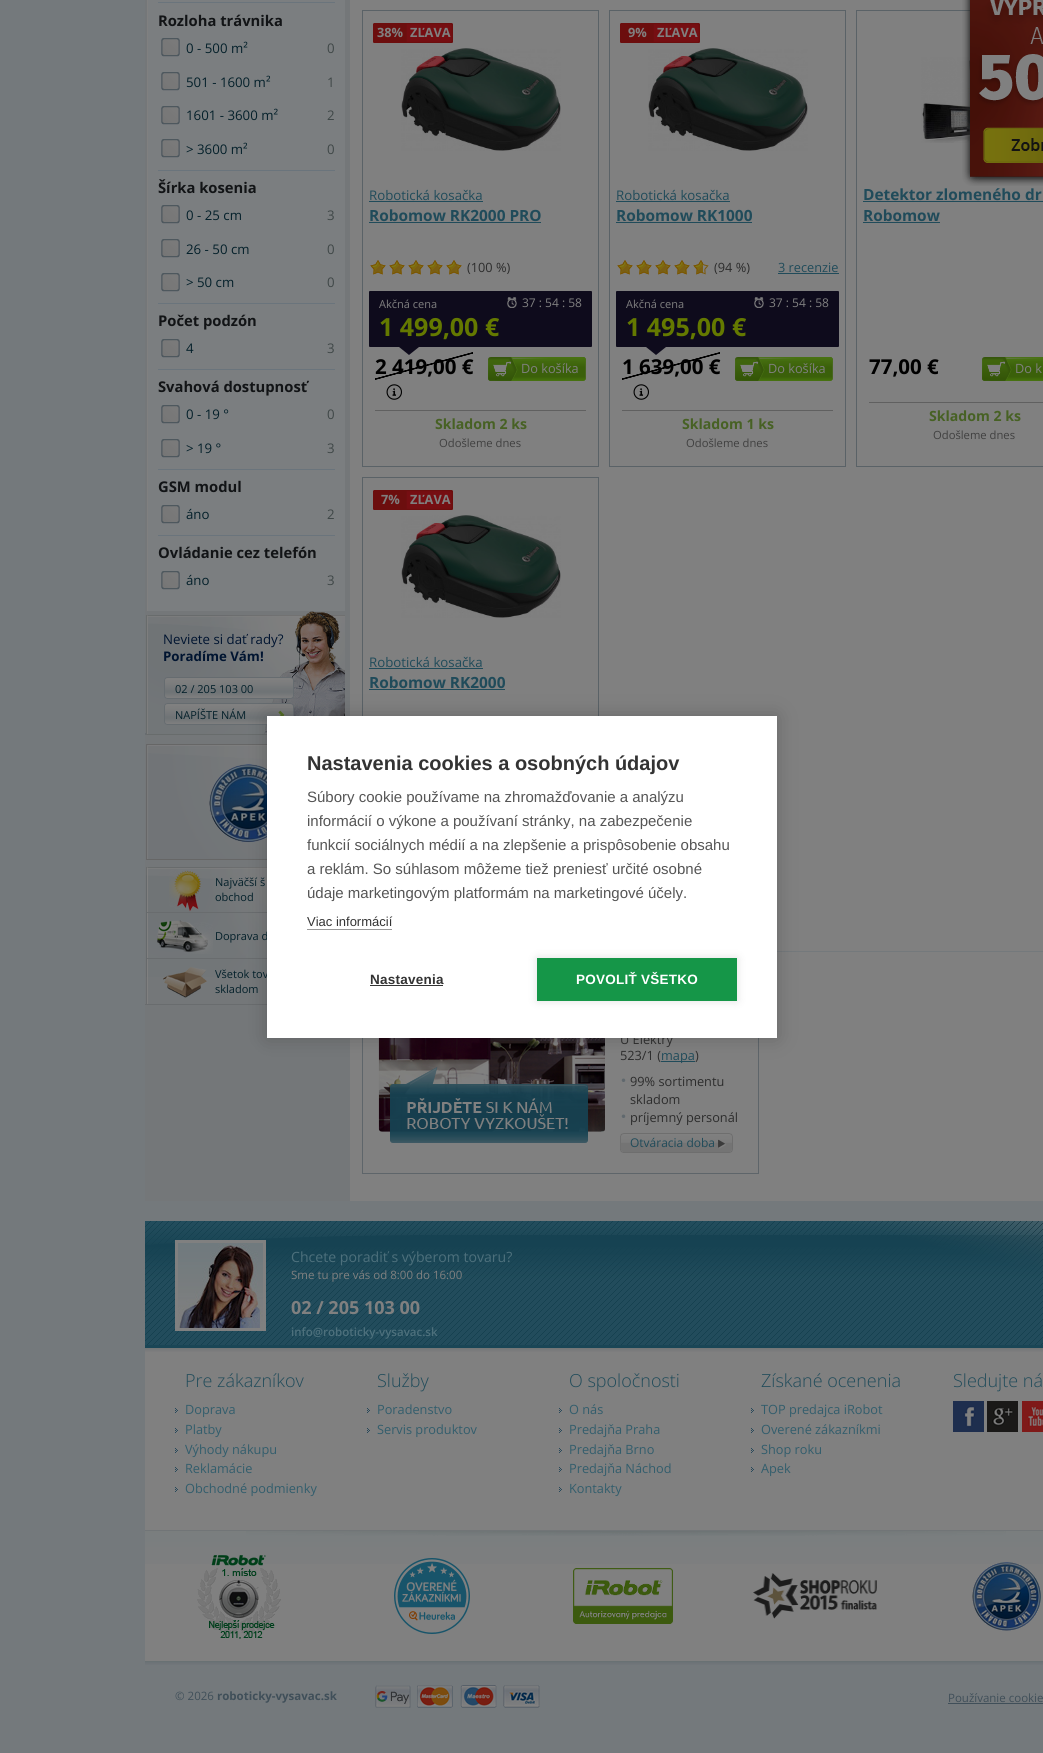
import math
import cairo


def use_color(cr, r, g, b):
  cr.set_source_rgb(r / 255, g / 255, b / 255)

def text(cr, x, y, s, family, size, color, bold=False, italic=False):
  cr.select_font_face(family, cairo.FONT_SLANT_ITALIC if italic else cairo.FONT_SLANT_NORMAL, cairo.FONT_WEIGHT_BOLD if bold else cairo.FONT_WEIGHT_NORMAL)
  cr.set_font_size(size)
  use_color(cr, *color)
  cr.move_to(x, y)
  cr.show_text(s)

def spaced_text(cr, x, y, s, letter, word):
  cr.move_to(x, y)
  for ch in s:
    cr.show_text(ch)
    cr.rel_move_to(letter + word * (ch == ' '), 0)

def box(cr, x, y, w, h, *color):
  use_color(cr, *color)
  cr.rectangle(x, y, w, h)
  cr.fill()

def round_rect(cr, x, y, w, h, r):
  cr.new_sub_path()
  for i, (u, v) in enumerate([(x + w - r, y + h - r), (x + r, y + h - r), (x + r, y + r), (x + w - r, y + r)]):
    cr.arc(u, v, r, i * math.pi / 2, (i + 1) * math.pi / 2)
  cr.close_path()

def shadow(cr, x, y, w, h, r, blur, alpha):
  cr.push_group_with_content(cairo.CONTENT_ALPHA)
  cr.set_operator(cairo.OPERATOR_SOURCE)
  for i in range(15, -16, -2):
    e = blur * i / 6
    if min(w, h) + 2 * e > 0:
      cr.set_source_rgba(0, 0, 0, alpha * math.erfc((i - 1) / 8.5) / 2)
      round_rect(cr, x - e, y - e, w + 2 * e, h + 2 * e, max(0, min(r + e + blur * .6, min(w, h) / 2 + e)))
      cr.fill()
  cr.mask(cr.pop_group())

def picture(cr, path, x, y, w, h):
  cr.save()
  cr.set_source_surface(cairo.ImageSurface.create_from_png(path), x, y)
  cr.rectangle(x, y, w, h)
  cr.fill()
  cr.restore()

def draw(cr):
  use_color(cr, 116, 121, 124)
  cr.paint()
  box(cr, 350, 0, 693, 1201, 128, 128, 128)
  cr.rectangle(856.5, 10.5, 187, 456)
  use_color(cr, 90, 98, 103)
  cr.set_line_width(1)
  cr.stroke()
  picture(cr, "img_20.png", 921, 57, 49, 86)
  picture(cr, "img_01.png", 962, 0, 81, 186)
  box(cr, 145, 0, 205, 1201, 116, 119, 121)
  box(cr, 148, 0, 197, 611, 123, 126, 128)
  box(cr, 147, 0, 1, 611, 128, 128, 128)
  box(cr, 158, 2, 177, 1, 106, 116, 124)
  picture(cr, "img_02.png", 161, 38, 19, 19)
  picture(cr, "img_02.png", 161, 72, 19, 19)
  picture(cr, "img_02.png", 161, 106, 19, 19)
  picture(cr, "img_02.png", 161, 139, 19, 19)
  box(cr, 158, 170, 177, 1, 106, 116, 124)
  picture(cr, "img_02.png", 161, 205, 19, 19)
  picture(cr, "img_02.png", 161, 239, 19, 19)
  picture(cr, "img_02.png", 161, 273, 19, 19)
  box(cr, 158, 303, 177, 1, 106, 116, 124)
  picture(cr, "img_02.png", 161, 339, 19, 19)
  box(cr, 158, 369, 177, 1, 106, 116, 124)
  picture(cr, "img_02.png", 161, 405, 19, 19)
  picture(cr, "img_02.png", 161, 439, 19, 19)
  box(cr, 158, 469, 177, 1, 106, 116, 124)
  picture(cr, "img_02.png", 161, 505, 19, 19)
  box(cr, 158, 535, 177, 1, 106, 116, 124)
  picture(cr, "img_02.png", 161, 571, 19, 19)
  picture(cr, "img_03.png", 145, 611, 200, 124)
  picture(cr, "img_04.png", 164, 677, 130, 22)
  picture(cr, "img_05.png", 164, 703, 130, 22)
  picture(cr, "img_06.png", 146, 744, 121, 116)
  picture(cr, "img_07.png", 146, 977, 2, 27)
  box(cr, 145, 1004, 122, 1, 105, 108, 110)
  picture(cr, "img_08.png", 146, 867, 121, 110)
  box(cr, 147, 912, 120, 1, 105, 108, 110)
  picture(cr, "img_09.png", 169, 870, 32, 42)
  box(cr, 147, 958, 120, 1, 105, 108, 110)
  picture(cr, "img_10.png", 157, 920, 56, 34)
  picture(cr, "img_11.png", 163, 967, 44, 31)
  cr.rectangle(362.5, 10.5, 236, 456)
  use_color(cr, 90, 98, 103)
  cr.stroke()
  picture(cr, "img_12.png", 373, 23, 80, 20)
  picture(cr, "img_13.png", 401, 48, 160, 103)
  box(cr, 369, 201, 114, 1, 32, 75, 90)
  box(cr, 369, 222, 172, 1, 32, 75, 90)
  picture(cr, "img_14.png", 370, 260, 92, 15)
  picture(cr, "img_15.png", 370, 260, 92, 15)
  use_color(cr, 14, 11, 28)
  round_rect(cr, 369, 291, 223, 56, 1)
  cr.fill()
  picture(cr, "img_16.png", 507, 297, 10, 11)
  cr.new_path()
  cr.move_to(399, 347)
  cr.line_to(419, 347)
  cr.line_to(409, 355)
  cr.close_path()
  cr.fill()
  gradient = cairo.LinearGradient(431, 392, 417, 340)
  gradient.add_color_stop_rgba(0.48, 0, 0, 0, 0)
  gradient.add_color_stop_rgba(0.49, 0, 0, 0, 1)
  gradient.add_color_stop_rgba(0.51, 0, 0, 0, 1)
  gradient.add_color_stop_rgba(0.52, 0, 0, 0, 0)
  cr.set_source(gradient)
  cr.rectangle(375, 352, 98, 28)
  cr.fill()
  picture(cr, "img_17.png", 488, 357, 98, 24)
  picture(cr, "img_18.png", 386, 384, 16, 16)
  box(cr, 375, 410, 211, 1, 96, 96, 96)
  cr.rectangle(609.5, 10.5, 236, 456)
  use_color(cr, 90, 98, 103)
  cr.stroke()
  picture(cr, "img_12.png", 620, 23, 80, 20)
  picture(cr, "img_13.png", 648, 48, 160, 103)
  box(cr, 616, 201, 114, 1, 32, 75, 90)
  box(cr, 616, 222, 136, 1, 32, 75, 90)
  picture(cr, "img_14.png", 617, 260, 92, 15)
  picture(cr, "img_19.png", 617, 260, 86, 15)
  box(cr, 778, 273, 61, 1, 32, 75, 90)
  use_color(cr, 14, 11, 28)
  round_rect(cr, 616, 291, 223, 56, 1)
  cr.fill()
  picture(cr, "img_16.png", 754, 297, 10, 11)
  cr.new_path()
  cr.move_to(646, 347)
  cr.line_to(666, 347)
  cr.line_to(656, 355)
  cr.close_path()
  cr.fill()
  gradient = cairo.LinearGradient(678, 392, 664, 340)
  gradient.add_color_stop_rgba(0.48, 0, 0, 0, 0)
  gradient.add_color_stop_rgba(0.49, 0, 0, 0, 1)
  gradient.add_color_stop_rgba(0.51, 0, 0, 0, 1)
  gradient.add_color_stop_rgba(0.52, 0, 0, 0, 0)
  cr.set_source(gradient)
  cr.rectangle(622, 352, 98, 28)
  cr.fill()
  picture(cr, "img_17.png", 735, 357, 98, 24)
  picture(cr, "img_18.png", 633, 384, 16, 16)
  box(cr, 622, 410, 211, 1, 96, 96, 96)
  box(cr, 863, 201, 180, 1, 32, 75, 90)
  box(cr, 863, 222, 77, 1, 32, 75, 90)
  picture(cr, "img_21.png", 982, 357, 61, 24)
  box(cr, 869, 402, 174, 1, 96, 96, 96)
  cr.rectangle(362.5, 477.5, 236, 456)
  use_color(cr, 90, 98, 103)
  cr.stroke()
  picture(cr, "img_12.png", 373, 490, 80, 20)
  picture(cr, "img_13.png", 401, 515, 160, 103)
  box(cr, 369, 668, 114, 1, 32, 75, 90)
  box(cr, 369, 689, 136, 1, 32, 75, 90)
  box(cr, 777, 951, 266, 1, 116, 121, 124)
  cr.rectangle(362.5, 1004.5, 396, 169)
  use_color(cr, 94, 101, 106)
  cr.stroke()
  picture(cr, "img_22.png", 378, 1038, 227, 94)
  picture(cr, "img_23.png", 390, 1067, 198, 76)
  box(cr, 661, 1061, 34, 1, 32, 75, 90)
  picture(cr, "img_24.png", 621, 1078, 5, 4)
  picture(cr, "img_24.png", 621, 1114, 5, 4)
  picture(cr, "img_25.png", 620, 1133, 113, 20)
  picture(cr, "img_26.png", 145, 1221, 898, 127)
  cr.rectangle(176.5, 1241.5, 88, 88)
  use_color(cr, 128, 128, 128)
  cr.set_line_width(3)
  cr.stroke()
  picture(cr, "img_27.png", 178, 1243, 85, 85)
  box(cr, 145, 1348, 898, 182, 128, 128, 128)
  picture(cr, "img_28.png", 145, 1348, 898, 4)
  picture(cr, "img_29.png", 175, 1408, 3, 5)
  picture(cr, "img_29.png", 175, 1428, 3, 5)
  picture(cr, "img_29.png", 175, 1448, 3, 5)
  picture(cr, "img_29.png", 175, 1467, 3, 5)
  picture(cr, "img_29.png", 175, 1487, 3, 5)
  picture(cr, "img_29.png", 367, 1408, 3, 5)
  picture(cr, "img_29.png", 367, 1428, 3, 5)
  picture(cr, "img_29.png", 559, 1408, 3, 5)
  picture(cr, "img_29.png", 559, 1428, 3, 5)
  picture(cr, "img_29.png", 559, 1448, 3, 5)
  picture(cr, "img_29.png", 559, 1467, 3, 5)
  picture(cr, "img_29.png", 559, 1487, 3, 5)
  picture(cr, "img_29.png", 751, 1408, 3, 5)
  picture(cr, "img_29.png", 751, 1428, 3, 5)
  picture(cr, "img_29.png", 751, 1448, 3, 5)
  picture(cr, "img_29.png", 751, 1467, 3, 5)
  picture(cr, "img_30.png", 953, 1401, 31, 31)
  picture(cr, "img_31.png", 987, 1401, 31, 31)
  picture(cr, "img_32.png", 1022, 1401, 21, 31)
  box(cr, 145, 1564, 898, 97, 128, 128, 128)
  picture(cr, "img_33.png", 145, 1531, 898, 33)
  box(cr, 145, 1530, 898, 1, 113, 117, 119)
  picture(cr, "img_34.png", 246, 1531, 760, 5)
  picture(cr, "img_35.png", 197, 1555, 84, 84)
  picture(cr, "img_36.png", 394, 1558, 76, 76)
  picture(cr, "img_37.png", 573, 1568, 100, 56)
  picture(cr, "img_38.png", 753, 1573, 124, 46)
  picture(cr, "img_39.png", 972, 1562, 69, 69)
  picture(cr, "img_40.png", 145, 1661, 898, 4)
  picture(cr, "img_41.png", 375, 1685, 36, 23)
  picture(cr, "img_42.png", 417, 1685, 36, 23)
  picture(cr, "img_43.png", 460, 1685, 37, 23)
  picture(cr, "img_44.png", 503, 1685, 37, 23)
  box(cr, 948, 1703, 95, 1, 64, 79, 89)
  use_color(cr, 0, 0, 0)
  shadow(cr, 267, 716, 510, 322, 0, 10, 0.2)
  text(cr, 158, 26, "Rozloha trávnika", "Open Sans", 14.75, (18, 20, 22), bold=True)
  text(cr, 186, 53, "0 - 500 m²", "Open Sans", 13.25, (4, 32, 42))
  text(cr, 327, 53, "0", "Open Sans", 13.25, (63, 71, 71))
  text(cr, 186, 87, "501 - 1600 m²", "Open Sans", 13.25, (4, 32, 42))
  text(cr, 327, 87, "1", "Open Sans", 13.25, (63, 71, 71))
  text(cr, 186, 120, "1601 - 3600 m²", "Open Sans", 13.25, (4, 32, 42))
  text(cr, 327, 120, "2", "Open Sans", 13.25, (63, 71, 71))
  text(cr, 186, 154, "> 3600 m²", "Open Sans", 13.25, (4, 32, 42))
  text(cr, 327, 154, "0", "Open Sans", 13.25, (63, 71, 71))
  text(cr, 158, 193, "Šírka kosenia", "Open Sans", 14.75, (18, 20, 22), bold=True)
  text(cr, 186, 220, "0 - 25 cm", "Open Sans", 13.25, (4, 32, 42))
  text(cr, 327, 220, "3", "Open Sans", 13.25, (63, 71, 71))
  text(cr, 186, 254, "26 - 50 cm", "Open Sans", 13.25, (4, 32, 42))
  text(cr, 327, 254, "0", "Open Sans", 13.25, (63, 71, 71))
  text(cr, 186, 287, "> 50 cm", "Open Sans", 13.25, (4, 32, 42))
  text(cr, 327, 287, "0", "Open Sans", 13.25, (63, 71, 71))
  text(cr, 158, 326, "Počet podzón", "Open Sans", 14.75, (18, 20, 22), bold=True)
  text(cr, 186, 353, "4", "Open Sans", 13.25, (4, 32, 42))
  text(cr, 327, 353, "3", "Open Sans", 13.25, (63, 71, 71))
  text(cr, 158, 392, "Svahová dostupnosť", "Open Sans", 14.75, (18, 20, 22), bold=True)
  text(cr, 186, 419, "0 - 19 °", "Open Sans", 13.25, (4, 32, 42))
  text(cr, 327, 419, "0", "Open Sans", 13.25, (63, 71, 71))
  text(cr, 186, 453, "> 19 °", "Open Sans", 13.25, (4, 32, 42))
  text(cr, 327, 453, "3", "Open Sans", 13.25, (63, 71, 71))
  text(cr, 158, 492, "GSM modul", "Open Sans", 14.75, (18, 20, 22), bold=True)
  text(cr, 186, 519, "áno", "Open Sans", 13.25, (4, 32, 42))
  text(cr, 327, 519, "2", "Open Sans", 13.25, (63, 71, 71))
  text(cr, 158, 558, "Ovládanie cez telefón", "Open Sans", 14.75, (18, 20, 22), bold=True)
  text(cr, 186, 585, "áno", "Open Sans", 13.25, (4, 32, 42))
  text(cr, 327, 585, "3", "Open Sans", 13.25, (63, 71, 71))
  text(cr, 163, 644, "Neviete si dať rady?", "Open Sans", 13.25, (0, 20, 48))
  text(cr, 163, 661, "Poradíme Vám!", "Open Sans", 13.25, (0, 20, 48), bold=True)
  text(cr, 175, 693, "02 / 205 103 00", "Open Sans", 11, (4, 32, 42))
  text(cr, 175, 719, "NAPÍŠTE NÁM", "Open Sans", 11, (4, 32, 42))
  text(cr, 215, 886, "Najväčší š", "Open Sans", 11, (4, 32, 42))
  text(cr, 215, 901, "obchod", "Open Sans", 11, (4, 32, 42))
  text(cr, 215, 940, "Doprava d", "Open Sans", 11, (4, 32, 42))
  text(cr, 215, 978, "Všetok tov", "Open Sans", 11, (4, 32, 42))
  text(cr, 215, 993, "skladom", "Open Sans", 11, (4, 32, 42))
  text(cr, 377, 37, "38%", "Open Sans", 12.75, (128, 128, 128), bold=True)
  text(cr, 410, 37, "ZĽAVA", "Open Sans", 12.75, (128, 128, 128), bold=True)
  text(cr, 369, 200, "Robotická kosačka", "Open Sans", 13.25, (32, 75, 90))
  text(cr, 369, 221, "Robomow RK2000 PRO", "Open Sans", 15.4, (32, 75, 90), bold=True)
  text(cr, 467, 272, "(100 %)", "Open Sans", 12.75, (44, 44, 44))
  text(cr, 379, 308, "Akčná cena", "Open Sans", 11, (128, 128, 128))
  text(cr, 379, 336, "1 499,00 €", "Open Sans", 25, (100, 121, 0), bold=True)
  text(cr, 522, 307, "37 : 54 : 58", "Open Sans", 12, (128, 128, 128))
  text(cr, 375, 374, "2 419,00 €", "Open Sans", 20.5, (0, 0, 0), bold=True)
  text(cr, 521, 373, "Do košíka", "Open Sans", 12.75, (128, 128, 128))
  text(cr, 435, 429, "Skladom 2 ks", "Open Sans", 14.1, (71, 97, 36), bold=True)
  text(cr, 439, 447, "Odošleme dnes", "Open Sans", 11.25, (64, 64, 64))
  text(cr, 628, 37, "9%", "Open Sans", 12.75, (128, 128, 128), bold=True)
  text(cr, 657, 37, "ZĽAVA", "Open Sans", 12.75, (128, 128, 128), bold=True)
  text(cr, 616, 200, "Robotická kosačka", "Open Sans", 13.25, (32, 75, 90))
  text(cr, 616, 221, "Robomow RK1000", "Open Sans", 15.4, (32, 75, 90), bold=True)
  text(cr, 714, 272, "(94 %)", "Open Sans", 12.75, (44, 44, 44))
  text(cr, 778, 272, "3 recenzie", "Open Sans", 12.75, (32, 75, 90))
  text(cr, 626, 308, "Akčná cena", "Open Sans", 11, (128, 128, 128))
  text(cr, 626, 336, "1 495,00 €", "Open Sans", 25, (100, 121, 0), bold=True)
  text(cr, 769, 307, "37 : 54 : 58", "Open Sans", 12, (128, 128, 128))
  text(cr, 622, 374, "1 639,00 €", "Open Sans", 20.5, (0, 0, 0), bold=True)
  text(cr, 768, 373, "Do košíka", "Open Sans", 12.75, (128, 128, 128))
  text(cr, 682, 429, "Skladom 1 ks", "Open Sans", 14.1, (71, 97, 36), bold=True)
  text(cr, 686, 447, "Odošleme dnes", "Open Sans", 11.25, (64, 64, 64))
  text(cr, 863, 200, "Detektor zlomeného dr", "Open Sans", 15.4, (32, 75, 90), bold=True)
  text(cr, 863, 221, "Robomow", "Open Sans", 15.4, (32, 75, 90), bold=True)
  text(cr, 869, 374, "77,00 €", "Open Sans", 20.5, (0, 0, 0), bold=True)
  text(cr, 1015, 373, "Do k", "Open Sans", 12.75, (128, 128, 128))
  text(cr, 929, 421, "Skladom 2 ks", "Open Sans", 14.1, (71, 97, 36), bold=True)
  text(cr, 933, 439, "Odošleme dnes", "Open Sans", 11.25, (64, 64, 64))
  text(cr, 381, 504, "7%", "Open Sans", 12.75, (128, 128, 128), bold=True)
  text(cr, 410, 504, "ZĽAVA", "Open Sans", 12.75, (128, 128, 128), bold=True)
  text(cr, 369, 667, "Robotická kosačka", "Open Sans", 13.25, (32, 75, 90))
  text(cr, 369, 688, "Robomow RK2000", "Open Sans", 15.4, (32, 75, 90), bold=True)
  text(cr, 620, 1044, "U Elektry", "Open Sans", 12.75, (44, 44, 44))
  text(cr, 620, 1060, "523/1 (", "Open Sans", 12.75, (44, 44, 44))
  text(cr, 661, 1060, "mapa", "Open Sans", 12.75, (32, 75, 90))
  text(cr, 695, 1060, ")", "Open Sans", 12.75, (44, 44, 44))
  text(cr, 630, 1086, "99% sortimentu", "Open Sans", 12.75, (44, 44, 44))
  text(cr, 630, 1104, "skladom", "Open Sans", 12.75, (44, 44, 44))
  text(cr, 630, 1122, "príjemný personál", "Open Sans", 12.75, (44, 44, 44))
  text(cr, 630, 1147, "Otváracia doba", "Open Sans", 12, (32, 75, 90))
  text(cr, 291, 1262, "Chcete poradiť s výberom tovaru?", "Open Sans", 14.1, (77, 112, 124))
  text(cr, 291, 1279, "Sme tu pre vás od 8:00 do 16:00", "Open Sans", 11.5, (128, 128, 128))
  text(cr, 291, 1314, "02 / 205 103 00", "Open Sans", 18, (128, 128, 128), bold=True)
  text(cr, 291, 1336, "info@roboticky-vysavac.sk", "Open Sans SemiBold", 11.5, (77, 112, 124))
  text(cr, 185, 1387, "Pre zákazníkov", "Open Sans Light", 18, (32, 75, 90))
  text(cr, 185, 1414, "Doprava", "Open Sans", 12.75, (50, 93, 108))
  text(cr, 185, 1434, "Platby", "Open Sans", 12.75, (50, 93, 108))
  text(cr, 185, 1454, "Výhody nákupu", "Open Sans", 12.75, (50, 93, 108))
  text(cr, 185, 1473, "Reklamácie", "Open Sans", 12.75, (50, 93, 108))
  text(cr, 185, 1493, "Obchodné podmienky", "Open Sans", 12.75, (50, 93, 108))
  text(cr, 377, 1387, "Služby", "Open Sans Light", 18, (32, 75, 90))
  text(cr, 377, 1414, "Poradenstvo", "Open Sans", 12.75, (50, 93, 108))
  text(cr, 377, 1434, "Servis produktov", "Open Sans", 12.75, (50, 93, 108))
  text(cr, 569, 1387, "O spoločnosti", "Open Sans Light", 18, (32, 75, 90))
  text(cr, 569, 1414, "O nás", "Open Sans", 12.75, (50, 93, 108))
  text(cr, 569, 1434, "Predajňa Praha", "Open Sans", 12.75, (50, 93, 108))
  text(cr, 569, 1454, "Predajňa Brno", "Open Sans", 12.75, (50, 93, 108))
  text(cr, 569, 1473, "Predajňa Náchod", "Open Sans", 12.75, (50, 93, 108))
  text(cr, 569, 1493, "Kontakty", "Open Sans", 12.75, (50, 93, 108))
  text(cr, 761, 1387, "Získané ocenenia", "Open Sans Light", 18, (32, 75, 90))
  text(cr, 761, 1414, "TOP predajca iRobot", "Open Sans", 12.75, (50, 93, 108))
  text(cr, 761, 1434, "Overené zákazníkmi", "Open Sans", 12.75, (50, 93, 108))
  text(cr, 761, 1454, "Shop roku", "Open Sans", 12.75, (50, 93, 108))
  text(cr, 761, 1473, "Apek", "Open Sans", 12.75, (50, 93, 108))
  text(cr, 953, 1387, "Sledujte ná", "Open Sans Light", 18, (32, 75, 90))
  text(cr, 175, 1700, "© 2026", "Open Sans", 11.5, (64, 79, 89))
  text(cr, 217, 1700, "roboticky-vysavac.sk", "Open Sans", 11.5, (64, 79, 89), bold=True)
  text(cr, 948, 1702, "Používanie cookie", "Open Sans", 11.5, (64, 79, 89))
  box(cr, 267, 716, 510, 322, 255, 255, 255)
  text(cr, 307, 770, "Nastavenia cookies a osobných údajov", "Liberation Sans", 20, (51, 51, 51), bold=True)
  text(cr, 307, 802, "Súbory cookie používame na zhromažďovanie a analýzu", "Liberation Sans", 15, (85, 85, 85))
  text(cr, 307, 826, "informácií o výkone a používaní stránky, na zabezpečenie", "Liberation Sans", 15, (85, 85, 85))
  text(cr, 307, 850, "funkcií sociálnych médií a na zlepšenie a prispôsobenie obsahu", "Liberation Sans", 15, (85, 85, 85))
  text(cr, 307, 874, "a reklám. So súhlasom môžeme tiež preniesť určité osobné", "Liberation Sans", 15, (85, 85, 85))
  text(cr, 307, 898, "údaje marketingovým platformám na marketingové účely.", "Liberation Sans", 15, (85, 85, 85))
  text(cr, 307, 926, "Viac informácií", "Liberation Sans", 13, (51, 51, 51))
  box(cr, 307, 929, 85, 1, 153, 153, 153)
  cr.select_font_face("Liberation Sans", cairo.FONT_SLANT_NORMAL, cairo.FONT_WEIGHT_BOLD)
  cr.set_font_size(13.5)
  use_color(cr, 51, 51, 51)
  spaced_text(cr, 370, 984, "Nastavenia", 0.25, 0)
  box(cr, 370, 985, 73, 1, 51, 51, 51)
  use_color(cr, 0, 0, 0)
  shadow(cr, 537, 958, 200, 43, 0, 5, 0.12)
  box(cr, 537, 958, 200, 43, 21, 150, 72)
  use_color(cr, 255, 255, 255)
  spaced_text(cr, 576, 984, "POVOLIŤ VŠETKO", 0.25, 0)


surface = cairo.ImageSurface(cairo.FORMAT_RGB24, 1043, 1753)
cr = cairo.Context(surface)
options = cairo.FontOptions()
options.set_hint_metrics(cairo.HINT_METRICS_OFF)
options.set_hint_style(cairo.HINT_STYLE_NONE)
cr.set_font_options(options)
cr.set_miter_limit(4)
draw(cr)
surface.write_to_png("out.png")
